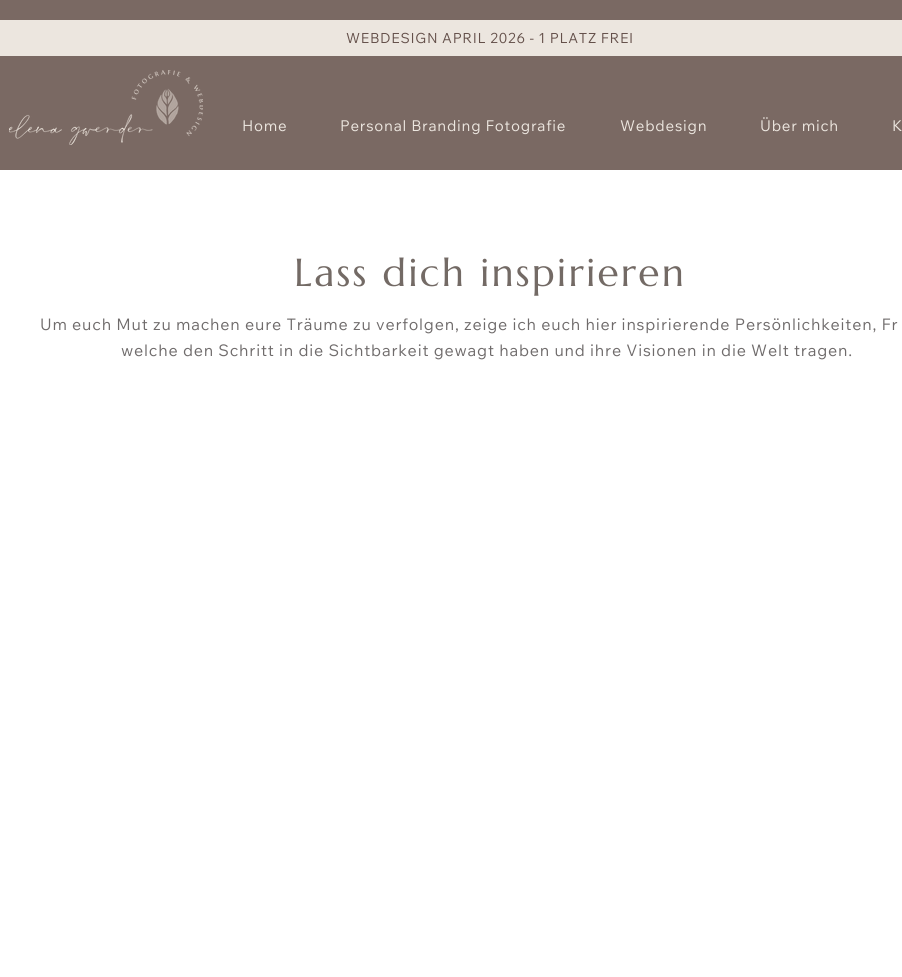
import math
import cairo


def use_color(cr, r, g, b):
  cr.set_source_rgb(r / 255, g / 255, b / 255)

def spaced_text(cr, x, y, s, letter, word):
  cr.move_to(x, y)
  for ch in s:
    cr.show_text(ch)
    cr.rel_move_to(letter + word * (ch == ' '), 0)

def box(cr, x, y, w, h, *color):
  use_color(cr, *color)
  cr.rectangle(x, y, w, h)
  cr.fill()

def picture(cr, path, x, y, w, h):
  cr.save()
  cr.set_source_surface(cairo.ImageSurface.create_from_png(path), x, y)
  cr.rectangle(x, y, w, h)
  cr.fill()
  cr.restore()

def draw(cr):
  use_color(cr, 255, 255, 255)
  cr.paint()
  box(cr, 0, 0, 902, 170, 122, 105, 99)
  box(cr, 0, 20, 902, 36, 236, 230, 223)
  picture(cr, "img_01.png", 9, 70, 194, 75)
  cr.select_font_face("Wix Madefor Text")
  cr.set_font_size(14)
  use_color(cr, 100, 80, 74)
  spaced_text(cr, 346, 43, "WEBDESIGN APRIL 2026 - 1 PLATZ FREI", 0.7, 0)
  cr.set_font_size(15)
  use_color(cr, 236, 230, 223)
  spaced_text(cr, 242, 131, "Home", 0.75, 0)
  spaced_text(cr, 340, 131, "Personal Branding Fotografie", 0.75, 0)
  spaced_text(cr, 620, 131, "Webdesign", 0.75, 0)
  spaced_text(cr, 760, 131, "Über mich", 0.75, 0)
  spaced_text(cr, 892, 131, "K", 0.75, 0)
  cr.select_font_face("Marcellus")
  cr.set_font_size(39)
  use_color(cr, 115, 106, 101)
  spaced_text(cr, 294, 286, "Lass dich inspirieren", 2.2, 0)
  cr.select_font_face("Wix Madefor Text")
  cr.set_font_size(16)
  use_color(cr, 111, 107, 107)
  spaced_text(cr, 40, 330, "Um euch Mut zu machen eure Träume zu verfolgen, zeige ich euch hier inspirierende Persönlichkeiten, Fr", 0.8, 0)
  spaced_text(cr, 121, 356, "welche den Schritt in die Sichtbarkeit gewagt haben und ihre Visionen in die Welt tragen.", 0.8, 0)


surface = cairo.ImageSurface(cairo.FORMAT_RGB24, 902, 977)
cr = cairo.Context(surface)
options = cairo.FontOptions()
options.set_hint_metrics(cairo.HINT_METRICS_OFF)
options.set_hint_style(cairo.HINT_STYLE_NONE)
cr.set_font_options(options)
cr.set_miter_limit(4)
draw(cr)
surface.write_to_png("out.png")
